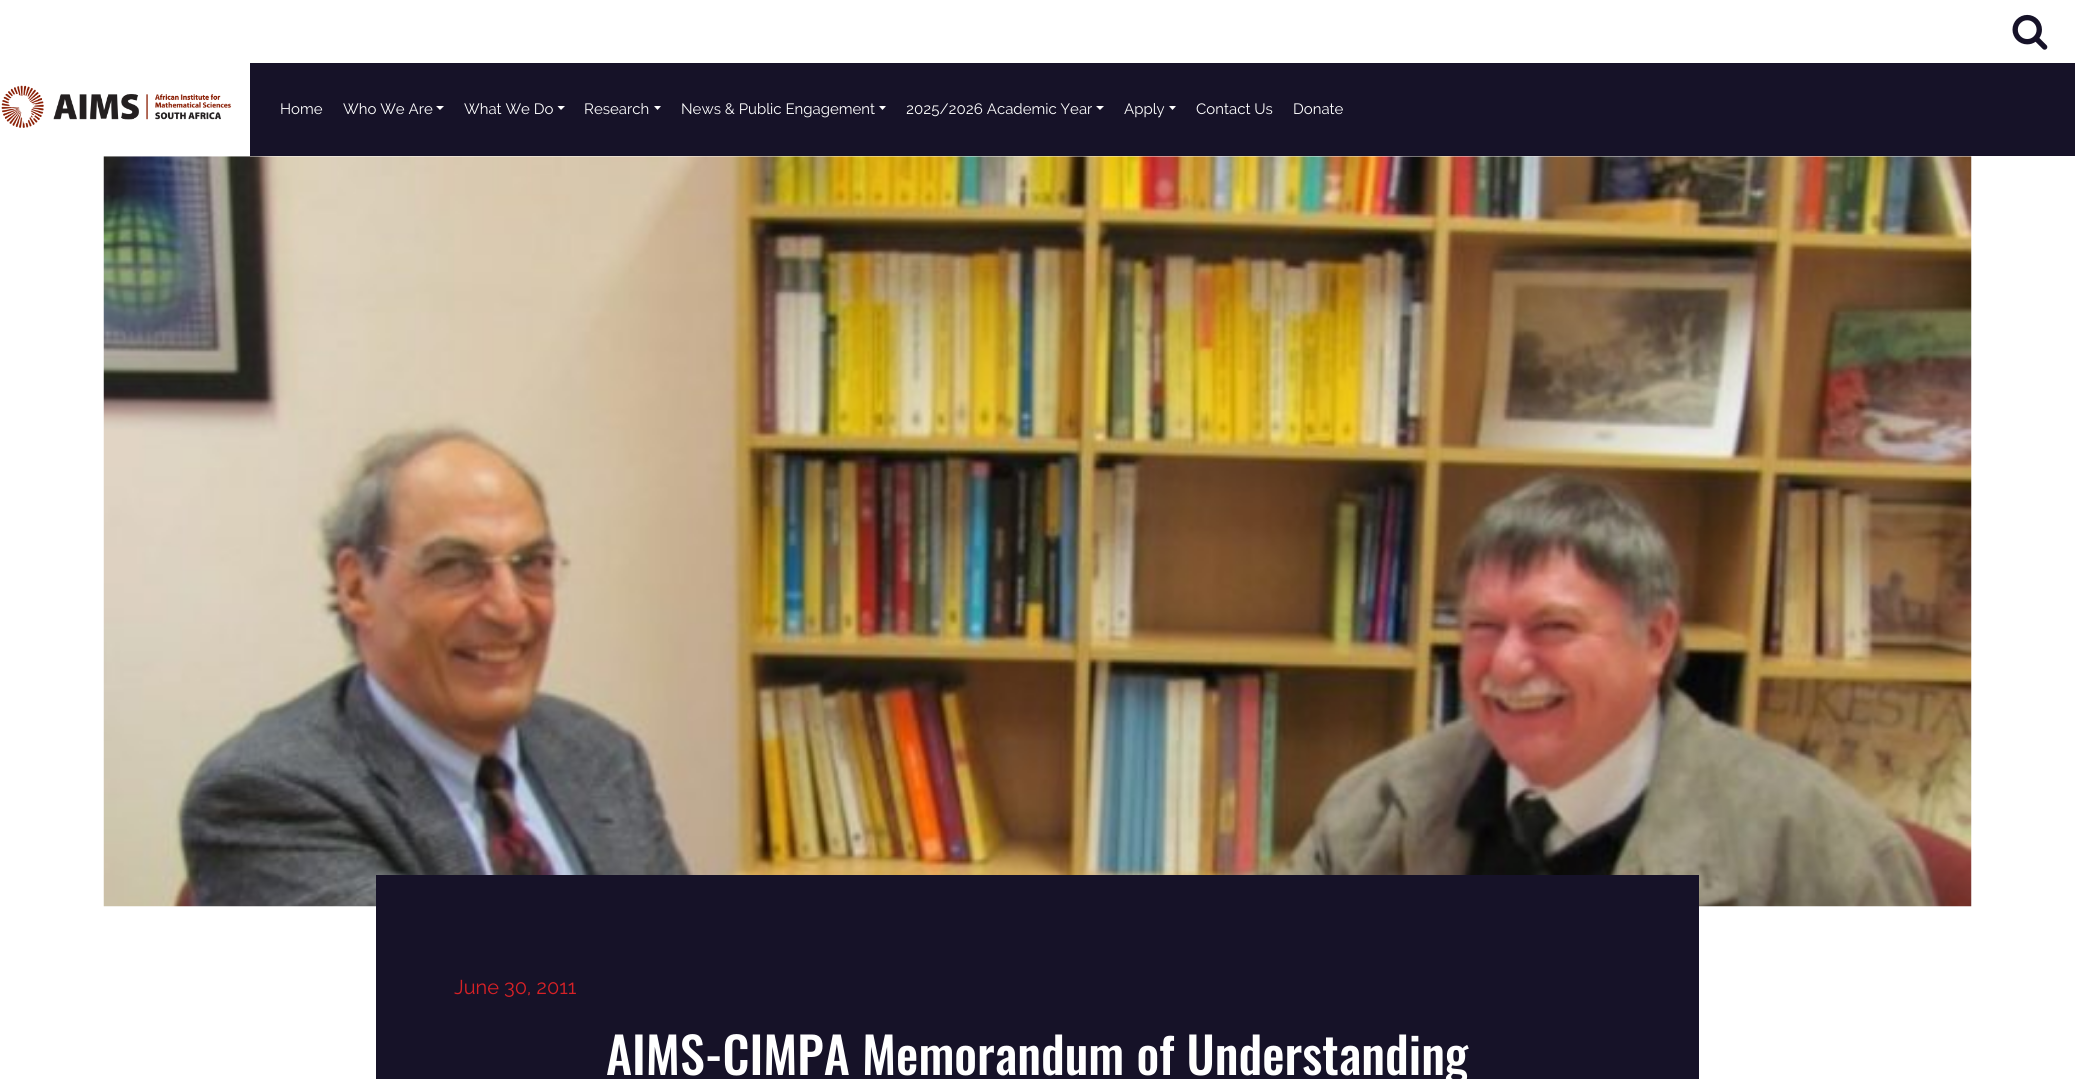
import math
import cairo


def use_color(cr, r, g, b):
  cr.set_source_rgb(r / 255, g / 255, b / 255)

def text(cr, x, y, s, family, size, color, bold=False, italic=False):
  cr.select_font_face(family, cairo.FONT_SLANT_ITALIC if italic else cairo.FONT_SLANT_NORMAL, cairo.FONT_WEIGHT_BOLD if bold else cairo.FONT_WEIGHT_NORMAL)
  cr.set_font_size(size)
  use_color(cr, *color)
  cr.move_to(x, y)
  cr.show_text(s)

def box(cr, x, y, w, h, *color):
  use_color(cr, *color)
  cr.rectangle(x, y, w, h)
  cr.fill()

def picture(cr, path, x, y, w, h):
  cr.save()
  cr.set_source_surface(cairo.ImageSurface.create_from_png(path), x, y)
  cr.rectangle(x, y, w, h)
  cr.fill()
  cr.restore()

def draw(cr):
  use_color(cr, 255, 255, 255)
  cr.paint()
  picture(cr, "img_01.png", 2012, 14, 36, 36)
  box(cr, 250, 63, 1825, 93, 22, 18, 40)
  picture(cr, "img_02.png", 1, 85, 231, 43)
  use_color(cr, 255, 255, 255)
  cr.new_path()
  cr.move_to(436, 106)
  cr.line_to(444, 106)
  cr.line_to(440, 110)
  cr.close_path()
  cr.fill()
  cr.new_path()
  cr.move_to(557.5, 106)
  cr.line_to(565, 106)
  cr.line_to(561, 110)
  cr.close_path()
  cr.fill()
  cr.new_path()
  cr.move_to(654, 106)
  cr.line_to(661, 106)
  cr.line_to(657.5, 110)
  cr.close_path()
  cr.fill()
  cr.new_path()
  cr.move_to(879, 106)
  cr.line_to(886, 106)
  cr.line_to(882.5, 110)
  cr.close_path()
  cr.fill()
  cr.new_path()
  cr.move_to(1096, 106)
  cr.line_to(1104, 106)
  cr.line_to(1100, 110)
  cr.close_path()
  cr.fill()
  cr.new_path()
  cr.move_to(1169, 106)
  cr.line_to(1176, 106)
  cr.line_to(1172.5, 110)
  cr.close_path()
  cr.fill()
  picture(cr, "img_03.png", 103, 156, 1869, 751)
  box(cr, 376, 875, 1323, 204, 22, 18, 40)
  text(cr, 280, 114, "Home", "Raleway", 15, (255, 255, 255))
  text(cr, 343, 114, "Who We Are", "Raleway", 15, (255, 255, 255))
  text(cr, 464, 114, "What We Do", "Raleway", 15, (255, 255, 255))
  text(cr, 584, 114, "Research", "Raleway", 15, (255, 255, 255))
  text(cr, 681, 114, "News & Public Engagement", "Raleway", 15, (255, 255, 255))
  text(cr, 906, 114, "2025/2026 Academic Year", "Raleway", 15, (255, 255, 255))
  text(cr, 1124, 114, "Apply", "Raleway", 15, (255, 255, 255))
  text(cr, 1196, 114, "Contact Us", "Raleway", 15, (255, 255, 255))
  text(cr, 1293, 114, "Donate", "Raleway", 15, (255, 255, 255))
  text(cr, 454, 994, "June 30, 2011", "Raleway", 20, (216, 33, 38))
  text(cr, 606, 1075, "AIMS-CIMPA Memorandum of Understanding", "Oswald Medium", 50, (255, 255, 255))


surface = cairo.ImageSurface(cairo.FORMAT_RGB24, 2075, 1079)
cr = cairo.Context(surface)
options = cairo.FontOptions()
options.set_hint_metrics(cairo.HINT_METRICS_OFF)
options.set_hint_style(cairo.HINT_STYLE_NONE)
cr.set_font_options(options)
cr.set_miter_limit(4)
draw(cr)
surface.write_to_png("out.png")
